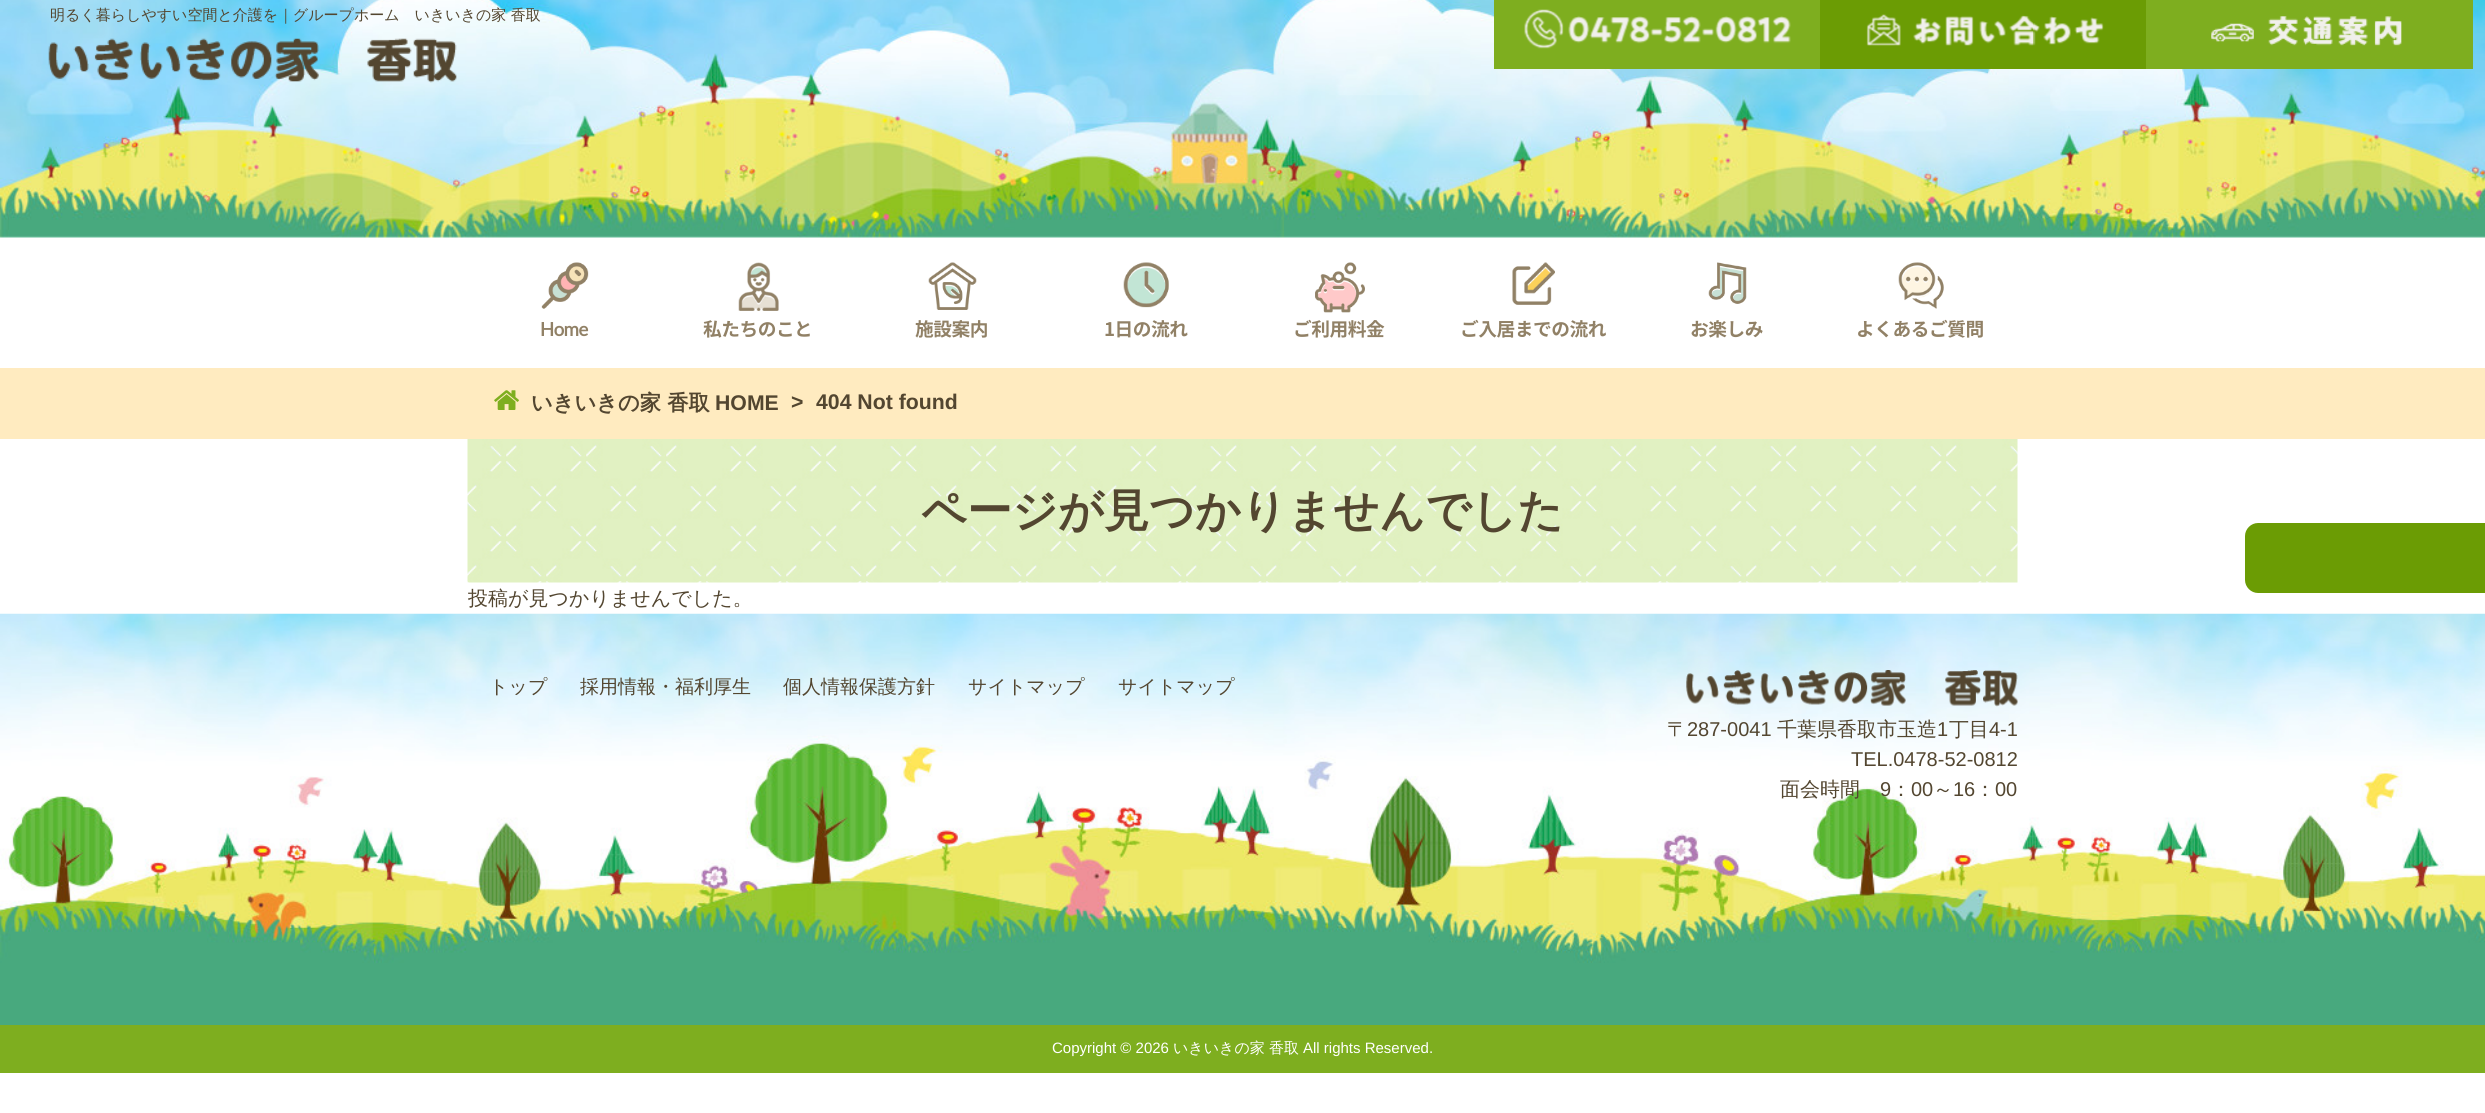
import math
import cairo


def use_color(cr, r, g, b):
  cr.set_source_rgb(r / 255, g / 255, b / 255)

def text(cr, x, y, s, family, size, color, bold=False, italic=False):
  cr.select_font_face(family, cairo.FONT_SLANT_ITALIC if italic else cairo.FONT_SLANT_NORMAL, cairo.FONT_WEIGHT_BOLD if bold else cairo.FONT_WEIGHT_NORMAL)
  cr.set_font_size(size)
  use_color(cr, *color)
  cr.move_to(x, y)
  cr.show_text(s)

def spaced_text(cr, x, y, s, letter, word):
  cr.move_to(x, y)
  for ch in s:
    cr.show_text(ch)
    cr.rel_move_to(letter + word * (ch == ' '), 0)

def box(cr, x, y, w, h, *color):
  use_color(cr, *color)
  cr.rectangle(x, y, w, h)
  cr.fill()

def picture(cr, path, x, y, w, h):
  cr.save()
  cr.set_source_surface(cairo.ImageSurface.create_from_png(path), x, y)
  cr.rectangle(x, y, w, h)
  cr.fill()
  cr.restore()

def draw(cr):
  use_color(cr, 255, 255, 255)
  cr.paint()
  picture(cr, "img_01.png", 0, 0, 2485, 238)
  picture(cr, "img_02.png", 48, 38, 409, 45)
  box(cr, 1494, 0, 326, 69, 126, 174, 31)
  picture(cr, "img_03.png", 1524, 9, 267, 40)
  box(cr, 1820, 0, 326, 69, 107, 156, 4)
  picture(cr, "img_04.png", 1866, 14, 238, 32)
  box(cr, 2146, 0, 327, 69, 126, 174, 31)
  picture(cr, "img_05.png", 2211, 16, 191, 30)
  picture(cr, "img_06.png", 541, 262, 48, 47)
  picture(cr, "img_07.png", 738, 262, 41, 49)
  picture(cr, "img_08.png", 928, 262, 49, 48)
  picture(cr, "img_09.png", 1123, 262, 46, 46)
  picture(cr, "img_10.png", 1315, 262, 50, 51)
  picture(cr, "img_11.png", 1512, 262, 43, 43)
  picture(cr, "img_12.png", 1708, 262, 39, 42)
  picture(cr, "img_13.png", 1898, 262, 46, 47)
  box(cr, 0, 368, 2485, 71, 255, 235, 192)
  picture(cr, "img_14.png", 494, 390, 25, 20)
  picture(cr, "img_15.png", 467, 439, 1551, 144)
  use_color(cr, 107, 156, 4)
  cr.new_path()
  cr.move_to(2258, 523)
  cr.line_to(2485, 523)
  cr.line_to(2485, 593)
  cr.line_to(2258, 593)
  cr.curve_to(2251, 593, 2245, 587, 2245, 580)
  cr.line_to(2245, 536)
  cr.curve_to(2245, 529, 2251, 523, 2258, 523)
  cr.close_path()
  cr.fill()
  picture(cr, "img_16.png", 0, 613, 2485, 412)
  picture(cr, "img_17.png", 1686, 670, 332, 37)
  box(cr, 0, 1025, 2485, 48, 126, 174, 31)
  text(cr, 50, 20, "明るく暮らしやすい空間と介護を｜グループホーム　いきいきの家 香取", "WenQuanYi Zen Hei Medium", 15, (83, 70, 48))
  cr.select_font_face("Lato", cairo.FONT_SLANT_NORMAL, cairo.FONT_WEIGHT_BOLD)
  cr.set_font_size(18.75)
  use_color(cr, 145, 129, 102)
  spaced_text(cr, 540, 336, "Home", -0.5, 0)
  cr.select_font_face("Noto Sans JP", cairo.FONT_SLANT_NORMAL, cairo.FONT_WEIGHT_BOLD)
  spaced_text(cr, 703, 336, "私たちのこと", -0.5, 0)
  spaced_text(cr, 915, 336, "施設案内", -0.5, 0)
  spaced_text(cr, 1104, 336, "1日の流れ", -0.5, 0)
  spaced_text(cr, 1293, 336, "ご利用料金", -0.5, 0)
  spaced_text(cr, 1460, 336, "ご入居までの流れ", -0.5, 0)
  spaced_text(cr, 1690, 336, "お楽しみ", -0.5, 0)
  spaced_text(cr, 1856, 336, "よくあるご質問", -0.5, 0)
  text(cr, 531, 410, "いきいきの家 香取", "WenQuanYi Zen Hei", 21.25, (83, 70, 48), bold=True)
  text(cr, 715, 410, "HOME", "Liberation Sans", 21.25, (83, 70, 48), bold=True)
  text(cr, 791, 409, ">", "Liberation Sans", 21.25, (83, 70, 48), bold=True)
  text(cr, 816, 409, "404 Not found", "Liberation Sans", 21.25, (83, 70, 48), bold=True)
  text(cr, 921, 526, "ページが見つかりませんでした", "WenQuanYi Zen Hei", 45, (83, 70, 48), bold=True)
  cr.save()
  cr.rectangle(468, 439, 1550, 175)
  cr.clip()
  text(cr, 468, 605, "投稿が見つかりませんでした。", "WenQuanYi Zen Hei Medium", 20, (83, 70, 48))
  cr.restore()
  text(cr, 489, 693, "トップ", "WenQuanYi Zen Hei Medium", 19, (83, 70, 48))
  text(cr, 580, 693, "採用情報・福利厚生", "WenQuanYi Zen Hei Medium", 19, (83, 70, 48))
  text(cr, 783, 693, "個人情報保護方針", "WenQuanYi Zen Hei Medium", 19, (83, 70, 48))
  text(cr, 968, 693, "サイトマップ", "WenQuanYi Zen Hei Medium", 19, (83, 70, 48))
  text(cr, 1118, 693, "サイトマップ", "WenQuanYi Zen Hei Medium", 19, (83, 70, 48))
  text(cr, 1667, 736, "〒", "WenQuanYi Zen Hei Medium", 20, (83, 70, 48))
  text(cr, 1687, 736, "287-0041", "Liberation Sans", 20, (83, 70, 48))
  text(cr, 1777, 736, "千葉県香取市玉造", "WenQuanYi Zen Hei Medium", 20, (83, 70, 48))
  text(cr, 1937, 736, "1", "Liberation Sans", 20, (83, 70, 48))
  text(cr, 1949, 736, "丁目", "WenQuanYi Zen Hei Medium", 20, (83, 70, 48))
  text(cr, 1989, 736, "4-1", "Liberation Sans", 20, (83, 70, 48))
  text(cr, 1851, 766, "TEL.0478-52-0812", "Liberation Sans", 20, (83, 70, 48))
  text(cr, 1780, 796, "面会時間", "WenQuanYi Zen Hei Medium", 20, (83, 70, 48))
  text(cr, 1880, 796, "9", "Liberation Sans", 20, (83, 70, 48))
  text(cr, 1891, 796, "：", "WenQuanYi Zen Hei Medium", 20, (83, 70, 48))
  text(cr, 1911, 796, "00", "Liberation Sans", 20, (83, 70, 48))
  text(cr, 1933, 796, "～", "WenQuanYi Zen Hei Medium", 20, (83, 70, 48))
  text(cr, 1953, 796, "16", "Liberation Sans", 20, (83, 70, 48))
  text(cr, 1975, 796, "：", "WenQuanYi Zen Hei Medium", 20, (83, 70, 48))
  text(cr, 1995, 796, "00", "Liberation Sans", 20, (83, 70, 48))
  text(cr, 1052, 1053, "Copyright © 2026", "Liberation Sans", 15, (255, 255, 255))
  text(cr, 1173, 1053, "いきいきの家", "WenQuanYi Zen Hei Medium", 15, (255, 255, 255))
  text(cr, 1269, 1053, "香取", "WenQuanYi Zen Hei Medium", 15, (255, 255, 255))
  text(cr, 1303, 1053, "All rights Reserved.", "Liberation Sans", 15, (255, 255, 255))


surface = cairo.ImageSurface(cairo.FORMAT_RGB24, 2485, 1113)
cr = cairo.Context(surface)
options = cairo.FontOptions()
options.set_hint_metrics(cairo.HINT_METRICS_OFF)
options.set_hint_style(cairo.HINT_STYLE_NONE)
cr.set_font_options(options)
cr.set_miter_limit(4)
draw(cr)
surface.write_to_png("out.png")
